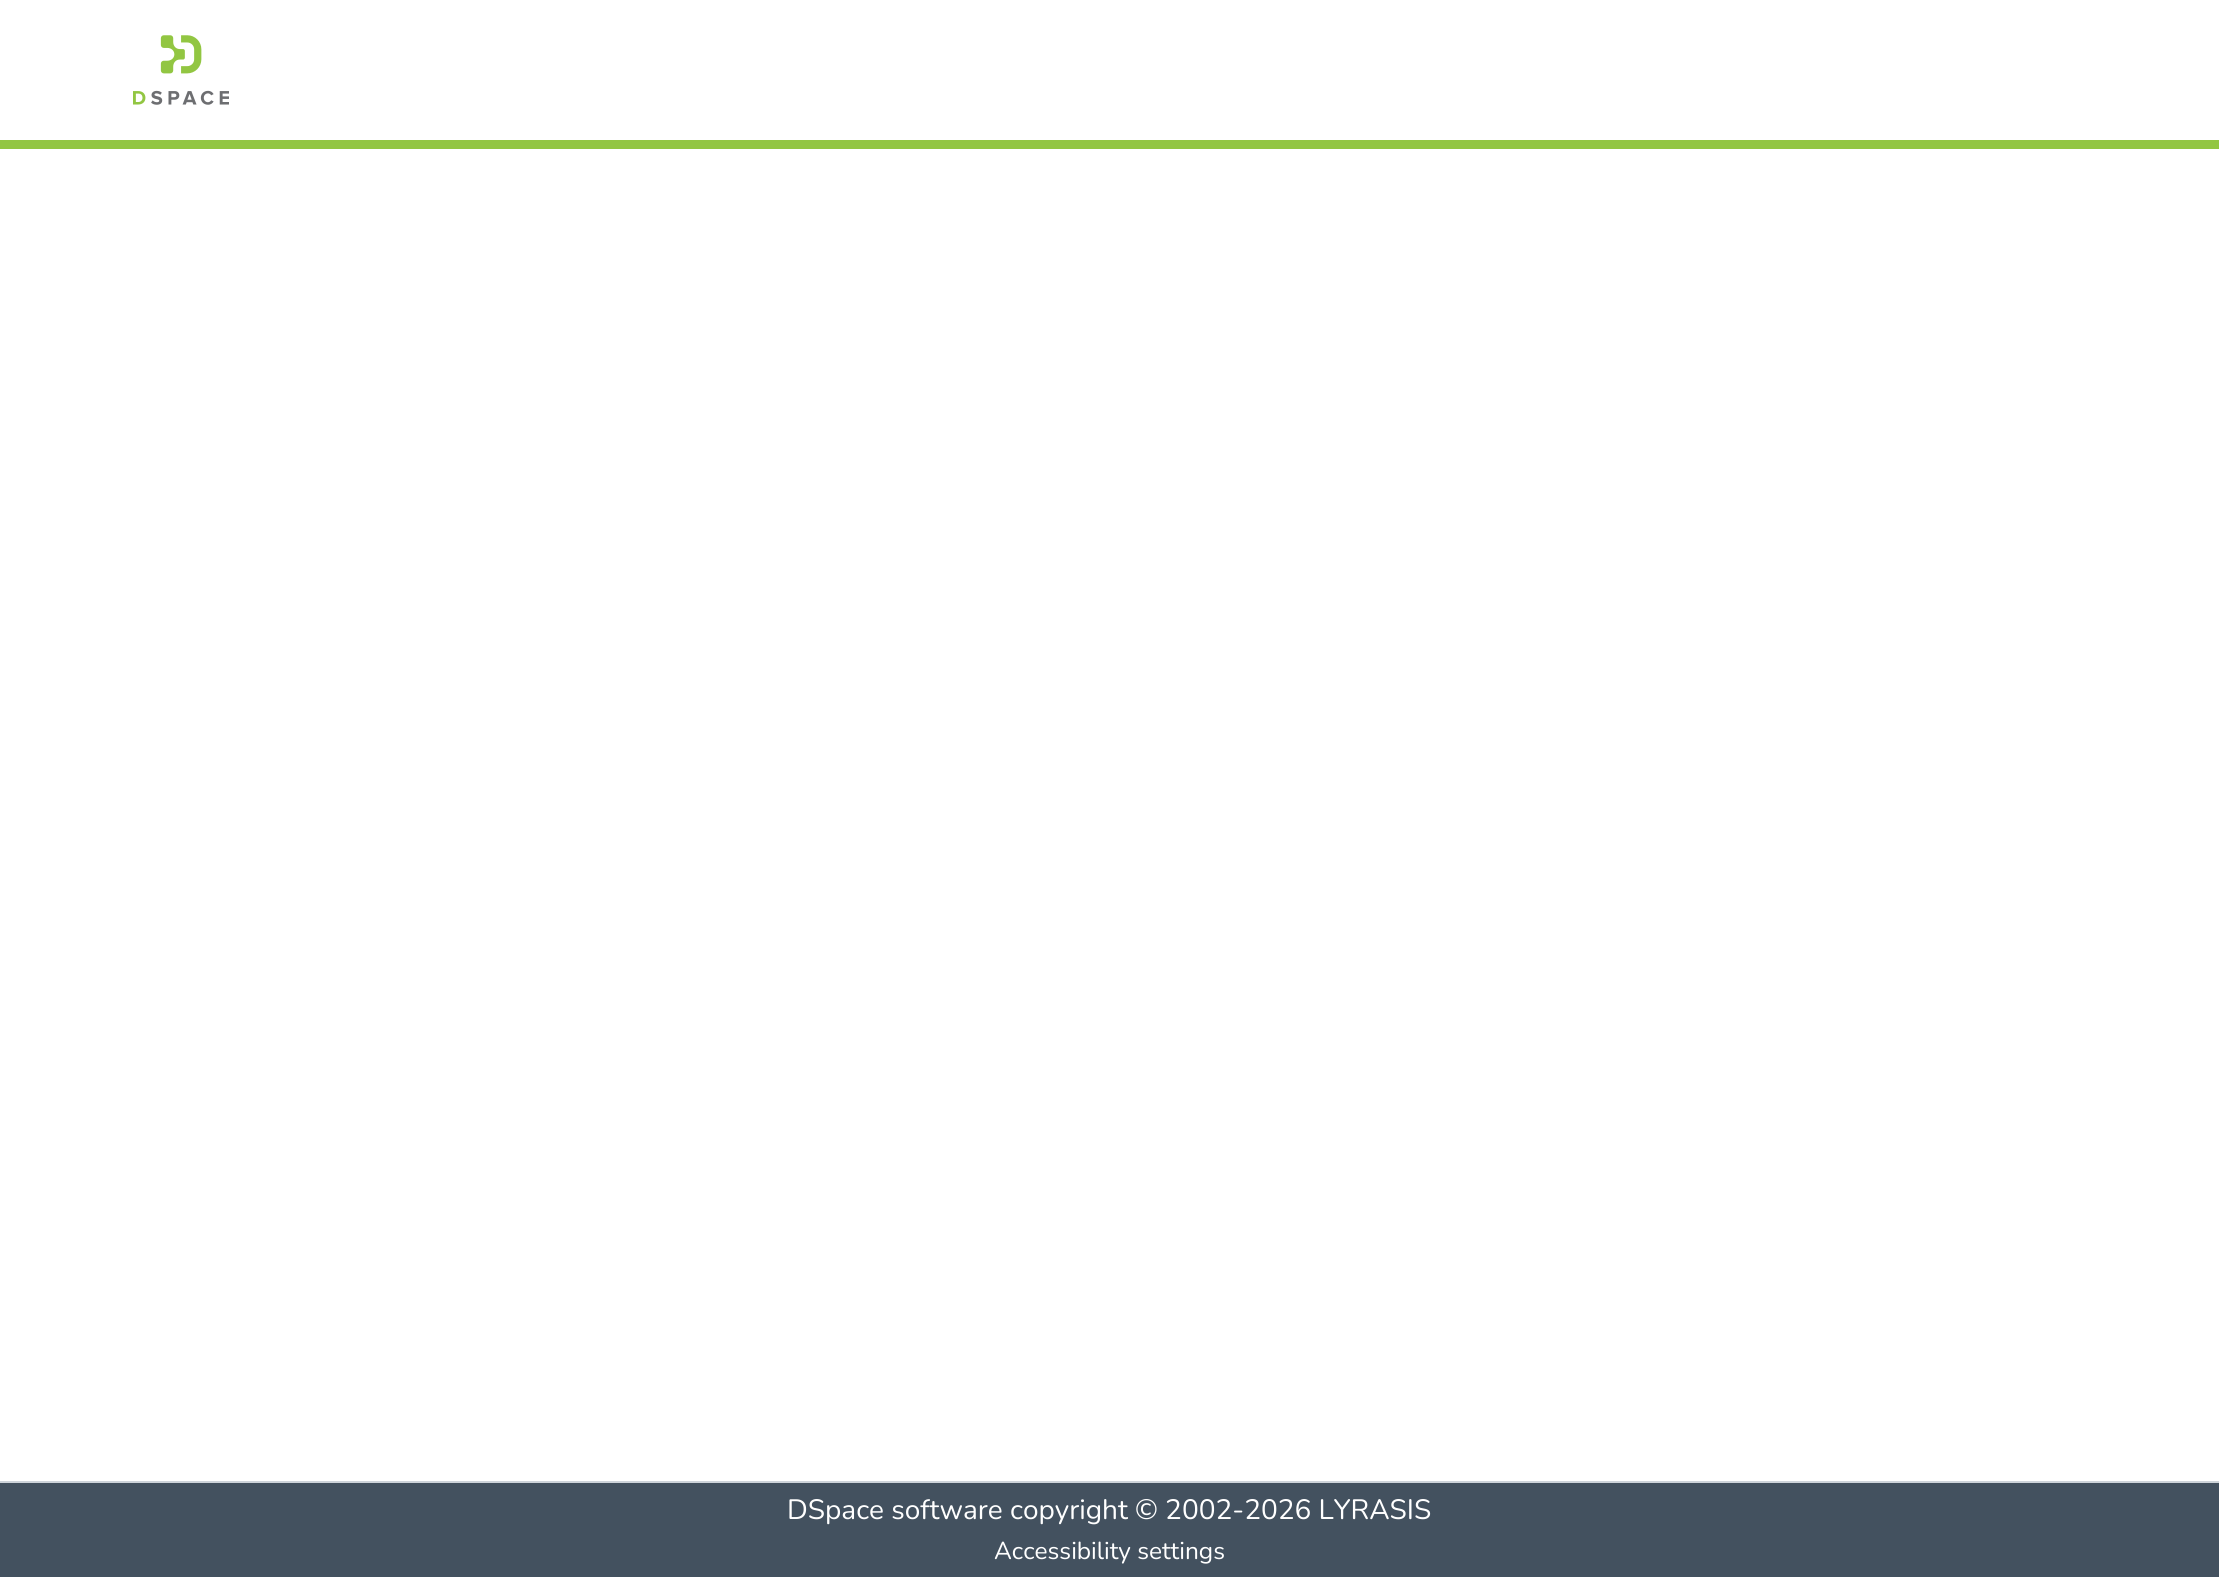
import math
import cairo


def use_color(cr, r, g, b):
  cr.set_source_rgb(r / 255, g / 255, b / 255)

def text(cr, x, y, s, family, size, color, bold=False, italic=False):
  cr.select_font_face(family, cairo.FONT_SLANT_ITALIC if italic else cairo.FONT_SLANT_NORMAL, cairo.FONT_WEIGHT_BOLD if bold else cairo.FONT_WEIGHT_NORMAL)
  cr.set_font_size(size)
  use_color(cr, *color)
  cr.move_to(x, y)
  cr.show_text(s)

def box(cr, x, y, w, h, *color):
  use_color(cr, *color)
  cr.rectangle(x, y, w, h)
  cr.fill()

def picture(cr, path, x, y, w, h):
  cr.save()
  cr.set_source_surface(cairo.ImageSurface.create_from_png(path), x, y)
  cr.rectangle(x, y, w, h)
  cr.fill()
  cr.restore()

def draw(cr):
  use_color(cr, 255, 255, 255)
  cr.paint()
  box(cr, 0, 140, 2219, 9, 146, 198, 66)
  picture(cr, "img_01.png", 133, 35, 96, 70)
  box(cr, 0, 1483, 2219, 94, 67, 81, 95)
  box(cr, 0, 1481, 2219, 2, 206, 212, 218)
  text(cr, 787, 1519, "DSpace software copyright © 2002-2026 LYRASIS", "Nunito", 28, (255, 255, 255))
  text(cr, 994, 1559, "Accessibility settings", "Nunito", 24.5, (255, 255, 255))


surface = cairo.ImageSurface(cairo.FORMAT_RGB24, 2219, 1577)
cr = cairo.Context(surface)
options = cairo.FontOptions()
options.set_hint_metrics(cairo.HINT_METRICS_OFF)
options.set_hint_style(cairo.HINT_STYLE_NONE)
cr.set_font_options(options)
cr.set_miter_limit(4)
draw(cr)
surface.write_to_png("out.png")
